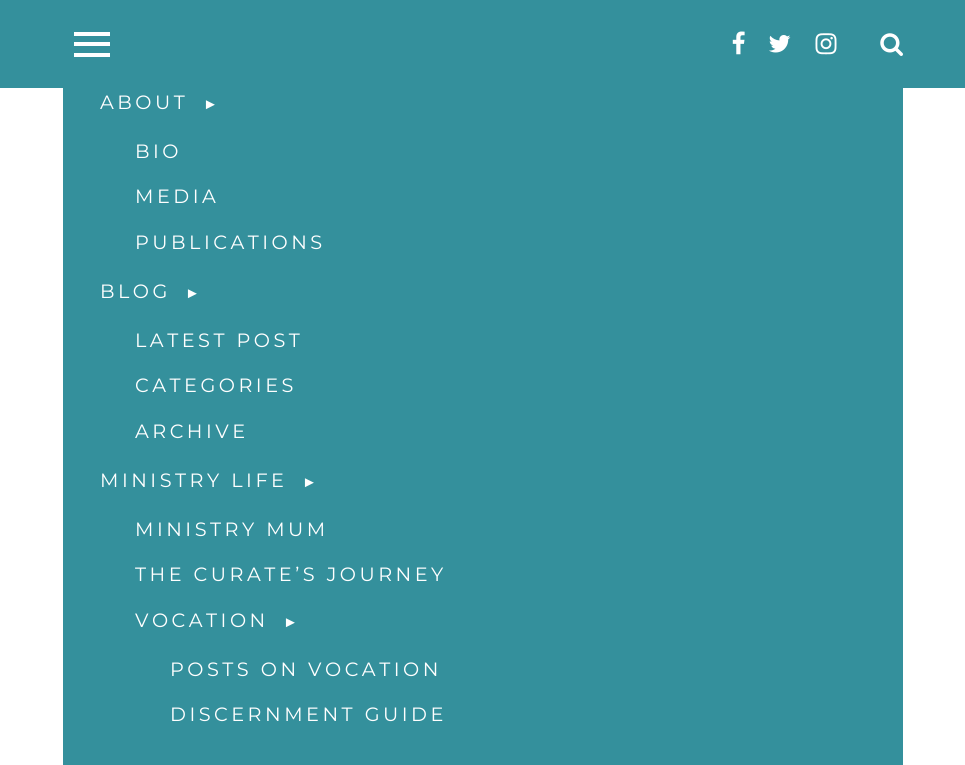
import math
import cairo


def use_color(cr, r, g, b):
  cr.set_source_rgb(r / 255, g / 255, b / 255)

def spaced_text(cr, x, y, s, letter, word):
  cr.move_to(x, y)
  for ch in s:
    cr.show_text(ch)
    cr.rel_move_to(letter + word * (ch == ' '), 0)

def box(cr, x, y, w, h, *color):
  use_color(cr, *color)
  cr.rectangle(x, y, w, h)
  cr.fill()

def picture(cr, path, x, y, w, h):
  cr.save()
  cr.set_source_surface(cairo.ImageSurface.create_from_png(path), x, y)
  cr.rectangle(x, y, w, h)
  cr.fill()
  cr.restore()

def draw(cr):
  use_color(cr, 255, 255, 255)
  cr.paint()
  box(cr, 0, 0, 965, 88, 52, 144, 156)
  picture(cr, "img_01.png", 732, 31, 13, 24)
  picture(cr, "img_02.png", 769, 35, 22, 18)
  picture(cr, "img_03.png", 815, 33, 22, 22)
  picture(cr, "img_04.png", 880, 33, 23, 23)
  box(cr, 63, 88, 840, 677, 52, 144, 156)
  box(cr, 74, 32, 36, 4, 255, 255, 255)
  box(cr, 74, 42, 36, 4, 255, 255, 255)
  box(cr, 74, 53, 36, 4, 255, 255, 255)
  cr.select_font_face("Montserrat")
  cr.set_font_size(19.25)
  spaced_text(cr, 100, 109, "ABOUT", 3.5, 0)
  cr.select_font_face("Liberation Sans")
  cr.set_font_size(15)
  spaced_text(cr, 203, 109, "►", 3.5, 0)
  cr.select_font_face("Montserrat")
  cr.set_font_size(19.25)
  spaced_text(cr, 135, 158, "BIO", 3.5, 0)
  spaced_text(cr, 135, 203, "MEDIA", 3.5, 0)
  spaced_text(cr, 135, 249, "PUBLICATIONS", 3.5, 0)
  spaced_text(cr, 100, 298, "BLOG", 3.5, 0)
  cr.select_font_face("Liberation Sans")
  cr.set_font_size(15)
  spaced_text(cr, 185, 298, "►", 3.5, 0)
  cr.select_font_face("Montserrat")
  cr.set_font_size(19.25)
  spaced_text(cr, 135, 347, "LATEST POST", 3.5, 0)
  spaced_text(cr, 135, 392, "CATEGORIES", 3.5, 0)
  spaced_text(cr, 135, 438, "ARCHIVE", 3.5, 0)
  spaced_text(cr, 100, 487, "MINISTRY LIFE", 3.5, 0)
  cr.select_font_face("Liberation Sans")
  cr.set_font_size(15)
  spaced_text(cr, 302, 487, "►", 3.5, 0)
  cr.select_font_face("Montserrat")
  cr.set_font_size(19.25)
  spaced_text(cr, 135, 536, "MINISTRY MUM", 3.5, 0)
  spaced_text(cr, 135, 581, "THE CURATE’S JOURNEY", 3.5, 0)
  spaced_text(cr, 135, 627, "VOCATION", 3.5, 0)
  cr.select_font_face("Liberation Sans")
  cr.set_font_size(15)
  spaced_text(cr, 283, 627, "►", 3.5, 0)
  cr.select_font_face("Montserrat")
  cr.set_font_size(19.25)
  spaced_text(cr, 170, 676, "POSTS ON VOCATION", 3.5, 0)
  spaced_text(cr, 170, 721, "DISCERNMENT GUIDE", 3.5, 0)


surface = cairo.ImageSurface(cairo.FORMAT_RGB24, 965, 765)
cr = cairo.Context(surface)
options = cairo.FontOptions()
options.set_hint_metrics(cairo.HINT_METRICS_OFF)
options.set_hint_style(cairo.HINT_STYLE_NONE)
cr.set_font_options(options)
cr.set_miter_limit(4)
draw(cr)
surface.write_to_png("out.png")
